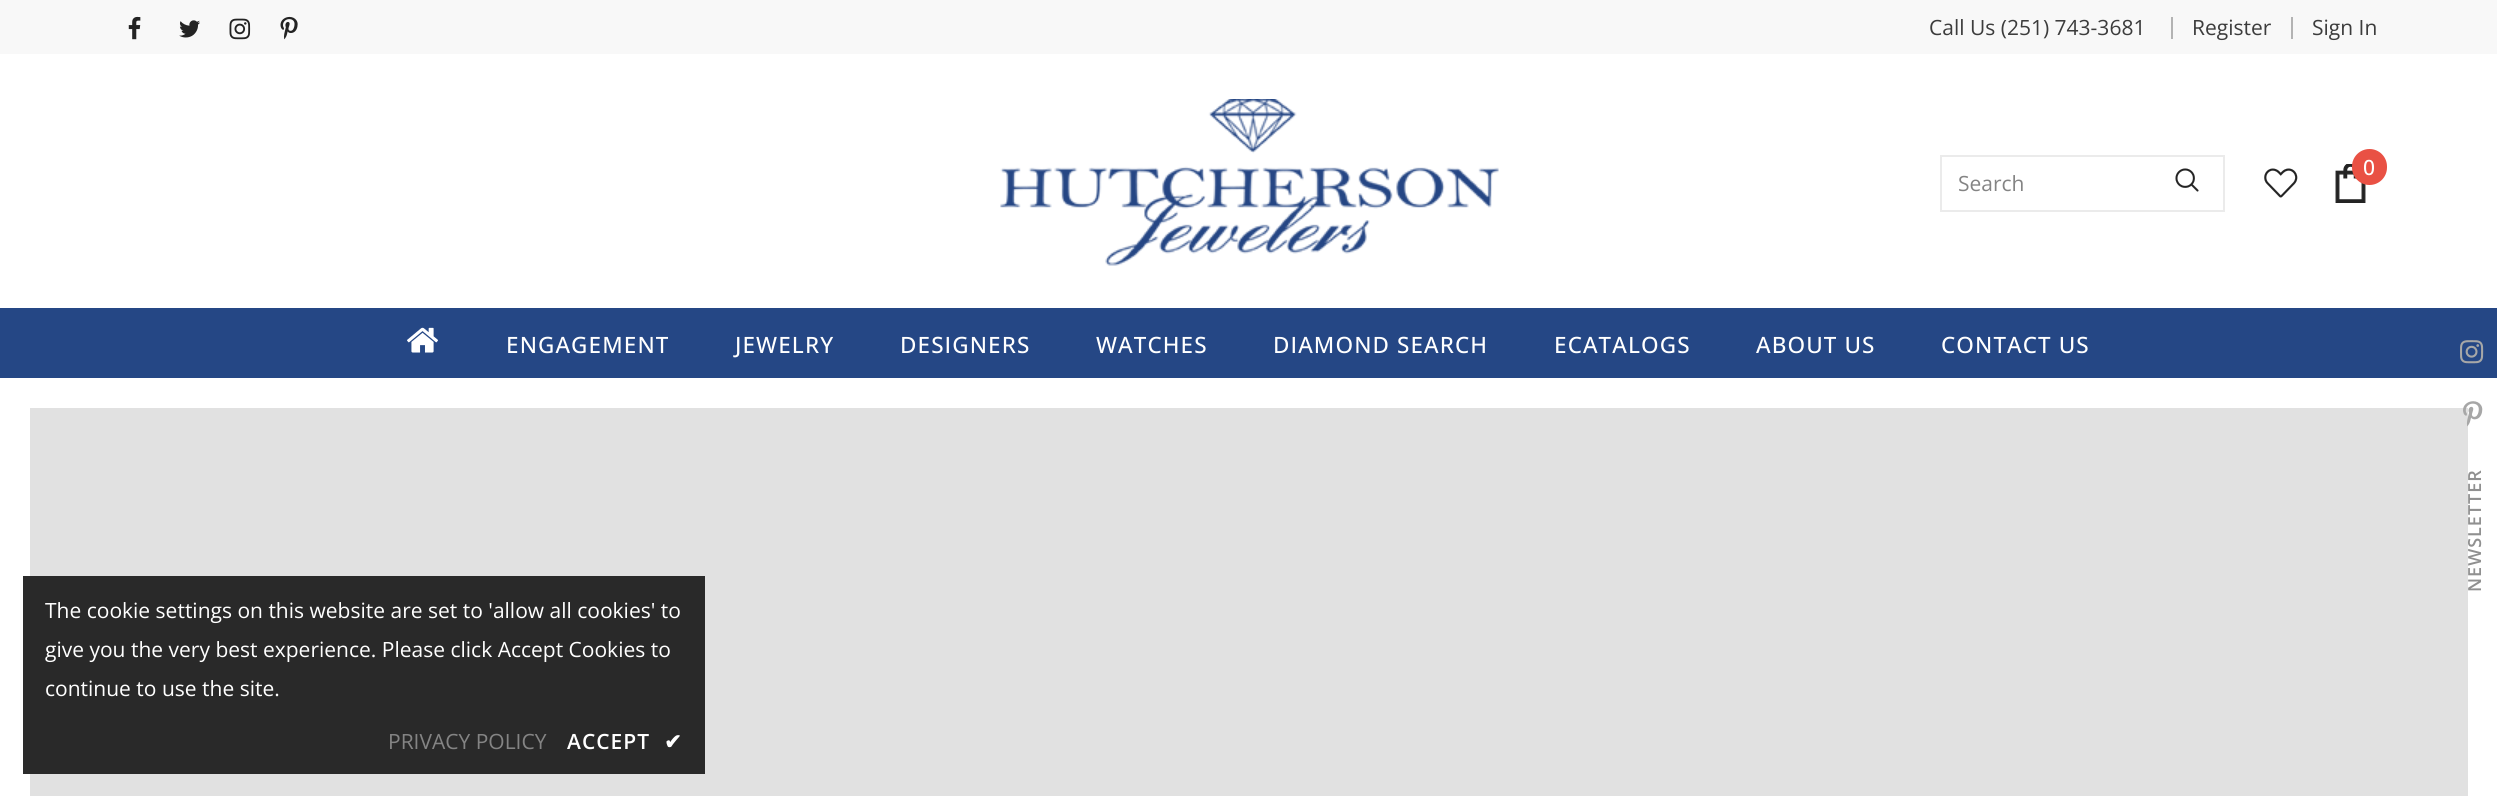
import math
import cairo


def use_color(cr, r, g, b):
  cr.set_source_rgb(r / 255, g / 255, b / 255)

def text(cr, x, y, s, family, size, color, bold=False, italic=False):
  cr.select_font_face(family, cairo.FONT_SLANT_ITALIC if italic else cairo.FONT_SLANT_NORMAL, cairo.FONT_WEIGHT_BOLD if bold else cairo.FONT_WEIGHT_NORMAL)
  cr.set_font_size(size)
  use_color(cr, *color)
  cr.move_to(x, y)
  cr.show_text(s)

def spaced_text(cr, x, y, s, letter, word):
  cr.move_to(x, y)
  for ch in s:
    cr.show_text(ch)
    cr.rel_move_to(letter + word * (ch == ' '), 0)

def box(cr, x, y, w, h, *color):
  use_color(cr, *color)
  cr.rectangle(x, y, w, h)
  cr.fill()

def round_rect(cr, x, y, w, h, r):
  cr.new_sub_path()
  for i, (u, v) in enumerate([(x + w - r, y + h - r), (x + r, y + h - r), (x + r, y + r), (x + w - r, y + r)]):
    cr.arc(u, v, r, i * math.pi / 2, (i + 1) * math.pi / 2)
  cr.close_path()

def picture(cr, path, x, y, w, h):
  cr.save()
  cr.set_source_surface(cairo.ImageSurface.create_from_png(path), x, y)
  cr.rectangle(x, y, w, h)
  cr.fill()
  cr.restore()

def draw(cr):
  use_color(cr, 255, 255, 255)
  cr.paint()
  box(cr, 23, 576, 7, 198, 43, 43, 43)
  box(cr, 0, 0, 2497, 54, 248, 248, 248)
  picture(cr, "img_01.png", 128, 16, 13, 24)
  picture(cr, "img_02.png", 179, 20, 21, 18)
  picture(cr, "img_03.png", 229, 18, 22, 22)
  picture(cr, "img_04.png", 280, 16, 18, 24)
  box(cr, 2171, 17, 2, 22, 179, 179, 179)
  box(cr, 2291, 17, 2, 22, 179, 179, 179)
  picture(cr, "img_05.png", 1000, 99, 499, 167)
  cr.rectangle(1941, 156, 283, 55)
  use_color(cr, 235, 235, 235)
  cr.stroke()
  picture(cr, "img_06.png", 2175, 168, 24, 24)
  picture(cr, "img_07.png", 2264, 168, 34, 30)
  picture(cr, "img_08.png", 2335, 164, 31, 39)
  use_color(cr, 233, 81, 68)
  round_rect(cr, 2352, 149, 35, 36, 17.5)
  cr.fill()
  box(cr, 0, 308, 2497, 70, 37, 71, 133)
  picture(cr, "img_09.png", 407, 327, 31, 26)
  picture(cr, "img_10.png", 2460, 340, 24, 24)
  box(cr, 30, 408, 2438, 388, 225, 225, 225)
  picture(cr, "img_11.png", 2463, 401, 20, 26)
  box(cr, 30, 576, 675, 198, 41, 41, 41)
  text(cr, 1929, 35, "Call Us (251) 743-3681", "Open Sans", 21, (60, 60, 60))
  text(cr, 2192, 35, "Register", "Open Sans", 21, (60, 60, 60))
  text(cr, 2312, 35, "Sign In", "Open Sans", 21, (60, 60, 60))
  text(cr, 1958, 191, "Search", "Open Sans", 21, (132, 132, 132))
  text(cr, 2363, 175, "0", "Open Sans Medium", 21, (255, 255, 255))
  cr.set_font_size(22.5)
  spaced_text(cr, 506, 353, "ENGAGEMENT", 1.1, 0)
  spaced_text(cr, 735, 353, "JEWELRY", 1.1, 0)
  spaced_text(cr, 900, 353, "DESIGNERS", 1.1, 0)
  spaced_text(cr, 1096, 353, "WATCHES", 1.1, 0)
  spaced_text(cr, 1273, 353, "DIAMOND SEARCH", 1.1, 0)
  spaced_text(cr, 1554, 353, "ECATALOGS", 1.1, 0)
  spaced_text(cr, 1756, 353, "ABOUT US", 1.1, 0)
  spaced_text(cr, 1941, 353, "CONTACT US", 1.1, 0)
  cr.select_font_face("Open Sans SemiBold")
  cr.set_font_size(18)
  use_color(cr, 144, 144, 144)
  cr.save()
  cr.translate(2481, 592)
  cr.rotate(-90 * math.pi / 180)
  spaced_text(cr, 0, 0, "NEWSLETTER", 1, 0)
  cr.restore()
  text(cr, 45, 618, "The cookie settings on this website are set to 'allow all cookies' to", "Open Sans", 21, (255, 255, 255))
  text(cr, 45, 657, "give you the very best experience. Please click Accept Cookies to", "Open Sans", 21, (255, 255, 255))
  text(cr, 45, 696, "continue to use the site.", "Open Sans", 21, (255, 255, 255))
  text(cr, 388, 749, "PRIVACY POLICY", "Open Sans", 21, (132, 132, 132))
  cr.select_font_face("Open Sans SemiBold")
  use_color(cr, 255, 255, 255)
  spaced_text(cr, 567, 749, "ACCEPT", 1, 0)
  cr.select_font_face("DejaVu Sans", cairo.FONT_SLANT_NORMAL, cairo.FONT_WEIGHT_BOLD)
  spaced_text(cr, 664, 749, "✔", 1, 0)


surface = cairo.ImageSurface(cairo.FORMAT_RGB24, 2497, 796)
cr = cairo.Context(surface)
options = cairo.FontOptions()
options.set_hint_metrics(cairo.HINT_METRICS_OFF)
options.set_hint_style(cairo.HINT_STYLE_NONE)
cr.set_font_options(options)
cr.set_miter_limit(4)
draw(cr)
surface.write_to_png("out.png")
